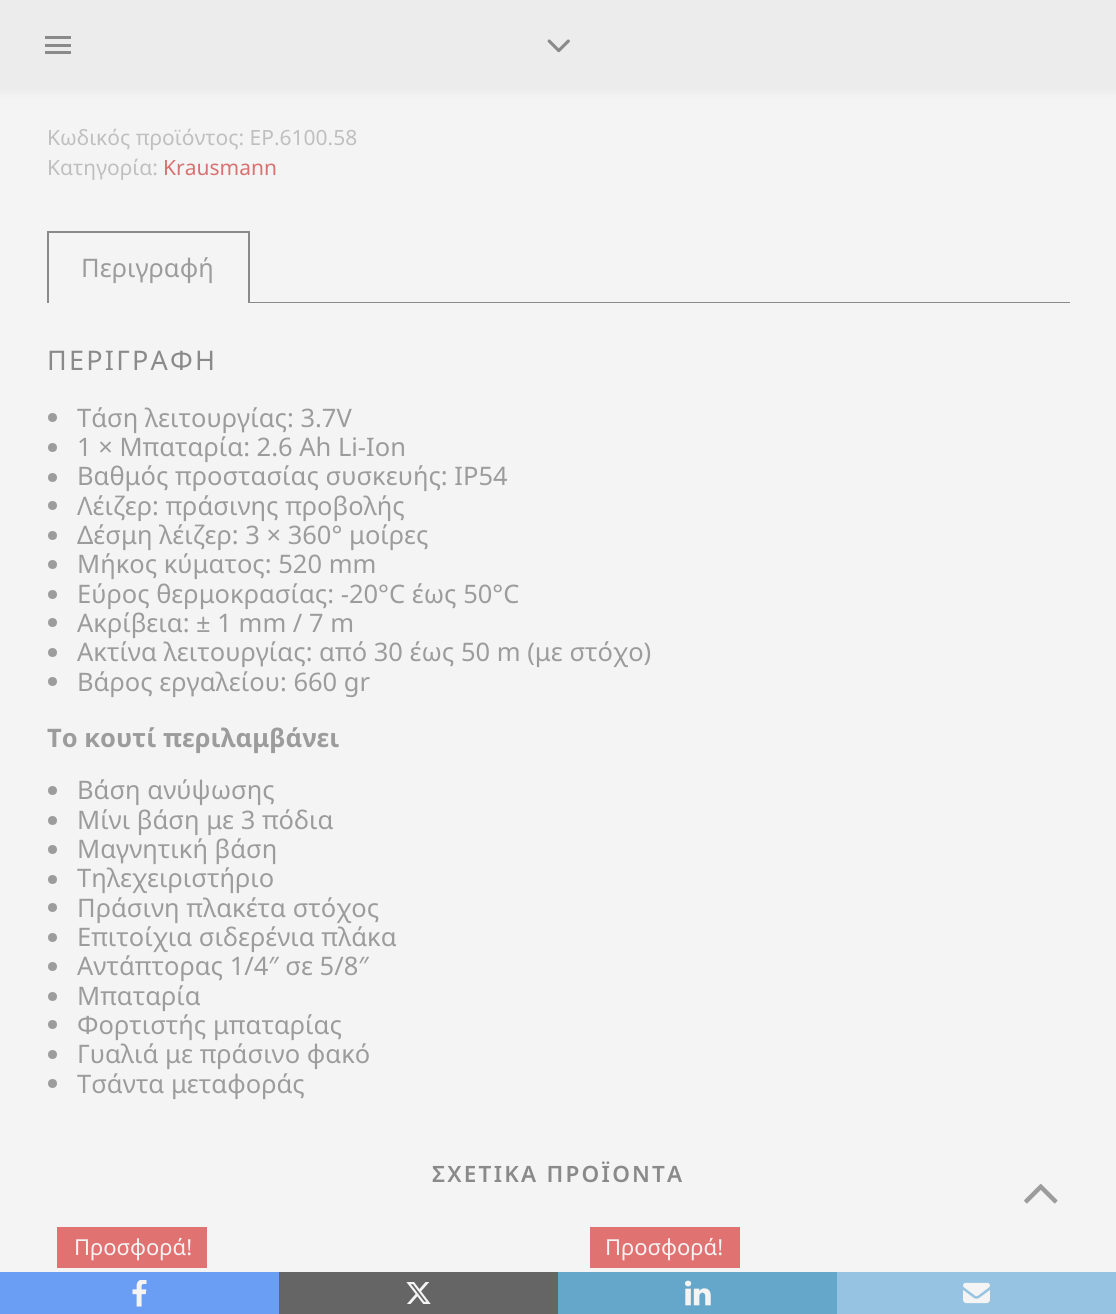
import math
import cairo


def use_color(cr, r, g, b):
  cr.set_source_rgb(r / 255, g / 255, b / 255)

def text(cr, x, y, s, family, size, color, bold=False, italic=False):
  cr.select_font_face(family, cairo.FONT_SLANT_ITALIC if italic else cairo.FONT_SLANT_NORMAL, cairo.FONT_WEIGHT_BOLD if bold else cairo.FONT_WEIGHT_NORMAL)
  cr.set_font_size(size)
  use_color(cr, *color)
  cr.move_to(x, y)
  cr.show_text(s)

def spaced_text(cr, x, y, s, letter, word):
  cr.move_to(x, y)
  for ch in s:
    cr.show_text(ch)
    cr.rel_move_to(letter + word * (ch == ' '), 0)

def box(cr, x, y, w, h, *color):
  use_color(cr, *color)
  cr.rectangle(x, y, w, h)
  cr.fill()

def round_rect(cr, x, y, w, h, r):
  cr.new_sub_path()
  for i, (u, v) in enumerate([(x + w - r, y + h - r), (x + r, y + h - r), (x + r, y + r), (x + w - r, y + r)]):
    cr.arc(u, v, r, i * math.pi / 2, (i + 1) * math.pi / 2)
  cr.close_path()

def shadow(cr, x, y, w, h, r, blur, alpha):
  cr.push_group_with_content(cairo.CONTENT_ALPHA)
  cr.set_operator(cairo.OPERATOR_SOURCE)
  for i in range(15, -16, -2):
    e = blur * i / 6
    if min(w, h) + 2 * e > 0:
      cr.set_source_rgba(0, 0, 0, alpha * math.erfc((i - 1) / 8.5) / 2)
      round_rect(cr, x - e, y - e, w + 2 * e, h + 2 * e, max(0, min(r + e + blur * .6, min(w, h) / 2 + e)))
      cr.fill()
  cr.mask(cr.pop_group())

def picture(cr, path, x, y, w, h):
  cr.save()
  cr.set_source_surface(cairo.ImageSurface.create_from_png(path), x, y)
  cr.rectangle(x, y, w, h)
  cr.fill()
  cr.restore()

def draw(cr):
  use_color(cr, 244, 244, 244)
  cr.paint()
  use_color(cr, 138, 138, 138)
  shadow(cr, 0, 2, 1116, 90, 0, 4, 0.1)
  box(cr, 0, 0, 1116, 90, 236, 236, 236)
  box(cr, 45, 36, 26, 3, 138, 138, 138)
  box(cr, 45, 44, 26, 3, 138, 138, 138)
  box(cr, 45, 51, 26, 3, 138, 138, 138)
  picture(cr, "img_01.png", 547, 39, 23, 14)
  box(cr, 47, 231, 202, 2, 138, 138, 138)
  box(cr, 248, 231, 2, 72, 138, 138, 138)
  box(cr, 47, 231, 2, 72, 138, 138, 138)
  box(cr, 250, 302, 820, 1, 138, 138, 138)
  use_color(cr, 156, 156, 156)
  cr.arc(52.5, 417.5, 4.5, 0, 2 * math.pi)
  cr.fill()
  cr.arc(52.5, 447.5, 4.5, 0, 2 * math.pi)
  cr.fill()
  cr.arc(52.5, 477.5, 4.5, 0, 2 * math.pi)
  cr.fill()
  cr.arc(52.5, 505.5, 4.5, 0, 2 * math.pi)
  cr.fill()
  cr.arc(52.5, 535.5, 4.5, 0, 2 * math.pi)
  cr.fill()
  cr.arc(52.5, 564.5, 4.5, 0, 2 * math.pi)
  cr.fill()
  cr.arc(52.5, 594.5, 4.5, 0, 2 * math.pi)
  cr.fill()
  cr.arc(52.5, 622.5, 4.5, 0, 2 * math.pi)
  cr.fill()
  cr.arc(52.5, 652.5, 4.5, 0, 2 * math.pi)
  cr.fill()
  cr.arc(52.5, 681.5, 4.5, 0, 2 * math.pi)
  cr.fill()
  cr.arc(52.5, 790.5, 4.5, 0, 2 * math.pi)
  cr.fill()
  cr.arc(52.5, 820.5, 4.5, 0, 2 * math.pi)
  cr.fill()
  cr.arc(52.5, 849.5, 4.5, 0, 2 * math.pi)
  cr.fill()
  cr.arc(52.5, 879.5, 4.5, 0, 2 * math.pi)
  cr.fill()
  cr.arc(52.5, 907.5, 4.5, 0, 2 * math.pi)
  cr.fill()
  cr.arc(52.5, 937.5, 4.5, 0, 2 * math.pi)
  cr.fill()
  cr.arc(52.5, 966.5, 4.5, 0, 2 * math.pi)
  cr.fill()
  cr.arc(52.5, 996.5, 4.5, 0, 2 * math.pi)
  cr.fill()
  cr.arc(52.5, 1024.5, 4.5, 0, 2 * math.pi)
  cr.fill()
  cr.arc(52.5, 1054.5, 4.5, 0, 2 * math.pi)
  cr.fill()
  cr.arc(52.5, 1083.5, 4.5, 0, 2 * math.pi)
  cr.fill()
  box(cr, 57, 1227, 150, 41, 225, 114, 114)
  box(cr, 590, 1227, 150, 41, 225, 114, 114)
  picture(cr, "img_02.png", 1024, 1183, 34, 21)
  box(cr, 0, 1272, 279, 42, 105, 158, 244)
  picture(cr, "img_03.png", 132, 1280, 15, 27)
  box(cr, 279, 1272, 279, 42, 101, 101, 101)
  picture(cr, "img_04.png", 406, 1282, 25, 22)
  box(cr, 558, 1272, 279, 42, 101, 167, 202)
  picture(cr, "img_05.png", 685, 1280, 26, 26)
  box(cr, 837, 1272, 279, 42, 150, 195, 225)
  picture(cr, "img_06.png", 963, 1282, 27, 22)
  text(cr, 47, 145, "Κωδικός προϊόντος: ΕΡ.6100.58", "Noto Sans", 21, (191, 191, 191))
  text(cr, 47, 175, "Κατηγορία:", "Noto Sans", 21, (191, 191, 191))
  text(cr, 163, 175, "Krausmann", "Noto Sans", 21, (216, 113, 113))
  text(cr, 81, 277, "Περιγραφή", "Noto Sans", 25.5, (156, 156, 156))
  cr.set_font_size(27)
  use_color(cr, 138, 138, 138)
  spaced_text(cr, 47, 370, "ΠΕΡΙΓΡΑΦΗ", 2.25, 0)
  text(cr, 77, 427, "Τάση λειτουργίας: 3.7V", "Noto Sans", 25.5, (156, 156, 156))
  text(cr, 77, 456, "1 × Μπαταρία: 2.6 Ah Li-Ion", "Noto Sans", 25.5, (156, 156, 156))
  text(cr, 77, 485, "Βαθμός προστασίας συσκευής: IP54", "Noto Sans", 25.5, (156, 156, 156))
  text(cr, 77, 515, "Λέιζερ: πράσινης προβολής", "Noto Sans", 25.5, (156, 156, 156))
  text(cr, 77, 544, "Δέσμη λέιζερ: 3 × 360° μοίρες", "Noto Sans", 25.5, (156, 156, 156))
  text(cr, 77, 573, "Μήκος κύματος: 520 mm", "Noto Sans", 25.5, (156, 156, 156))
  text(cr, 77, 603, "Εύρος θερμοκρασίας: -20°C έως 50°C", "Noto Sans", 25.5, (156, 156, 156))
  text(cr, 77, 632, "Ακρίβεια: ± 1 mm / 7 m", "Noto Sans", 25.5, (156, 156, 156))
  text(cr, 77, 661, "Ακτίνα λειτουργίας: από 30 έως 50 m (με στόχο)", "Noto Sans", 25.5, (156, 156, 156))
  text(cr, 77, 691, "Βάρος εργαλείου: 660 gr", "Noto Sans", 25.5, (156, 156, 156))
  text(cr, 47, 747, "Το κουτί περιλαμβάνει", "Noto Sans", 25.5, (156, 156, 156), bold=True)
  text(cr, 77, 799, "Βάση ανύψωσης", "Noto Sans", 25.5, (156, 156, 156))
  text(cr, 77, 829, "Μίνι βάση με 3 πόδια", "Noto Sans", 25.5, (156, 156, 156))
  text(cr, 77, 858, "Μαγνητική βάση", "Noto Sans", 25.5, (156, 156, 156))
  text(cr, 77, 887, "Τηλεχειριστήριο", "Noto Sans", 25.5, (156, 156, 156))
  text(cr, 77, 917, "Πράσινη πλακέτα στόχος", "Noto Sans", 25.5, (156, 156, 156))
  text(cr, 77, 946, "Επιτοίχια σιδερένια πλάκα", "Noto Sans", 25.5, (156, 156, 156))
  text(cr, 77, 975, "Αντάπτορας 1/4″ σε 5/8″", "Noto Sans", 25.5, (156, 156, 156))
  text(cr, 77, 1005, "Μπαταρία", "Noto Sans", 25.5, (156, 156, 156))
  text(cr, 77, 1034, "Φορτιστής μπαταρίας", "Noto Sans", 25.5, (156, 156, 156))
  text(cr, 77, 1063, "Γυαλιά με πράσινο φακό", "Noto Sans", 25.5, (156, 156, 156))
  text(cr, 77, 1093, "Τσάντα μεταφοράς", "Noto Sans", 25.5, (156, 156, 156))
  cr.select_font_face("Noto Sans SemiBold")
  cr.set_font_size(22.5)
  use_color(cr, 138, 138, 138)
  spaced_text(cr, 432, 1182, "ΣΧΕΤΙΚΑ ΠΡΟΪΟΝΤΑ", 2.25, 0)
  text(cr, 74, 1255, "Προσφορά!", "Noto Sans", 22, (244, 244, 244))
  text(cr, 605, 1255, "Προσφορά!", "Noto Sans", 22, (244, 244, 244))


surface = cairo.ImageSurface(cairo.FORMAT_RGB24, 1116, 1314)
cr = cairo.Context(surface)
options = cairo.FontOptions()
options.set_hint_metrics(cairo.HINT_METRICS_OFF)
options.set_hint_style(cairo.HINT_STYLE_NONE)
cr.set_font_options(options)
cr.set_miter_limit(4)
draw(cr)
surface.write_to_png("out.png")
